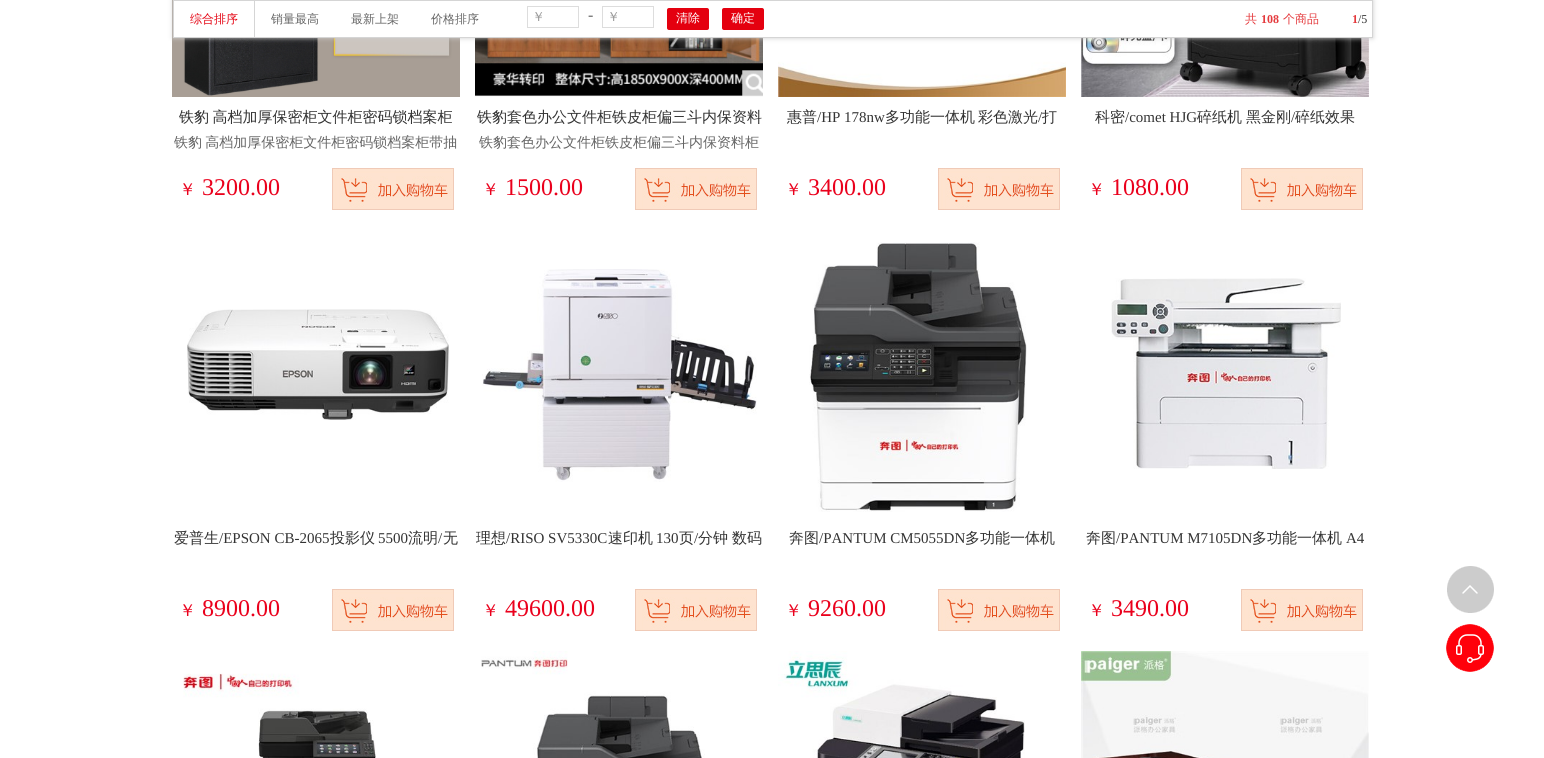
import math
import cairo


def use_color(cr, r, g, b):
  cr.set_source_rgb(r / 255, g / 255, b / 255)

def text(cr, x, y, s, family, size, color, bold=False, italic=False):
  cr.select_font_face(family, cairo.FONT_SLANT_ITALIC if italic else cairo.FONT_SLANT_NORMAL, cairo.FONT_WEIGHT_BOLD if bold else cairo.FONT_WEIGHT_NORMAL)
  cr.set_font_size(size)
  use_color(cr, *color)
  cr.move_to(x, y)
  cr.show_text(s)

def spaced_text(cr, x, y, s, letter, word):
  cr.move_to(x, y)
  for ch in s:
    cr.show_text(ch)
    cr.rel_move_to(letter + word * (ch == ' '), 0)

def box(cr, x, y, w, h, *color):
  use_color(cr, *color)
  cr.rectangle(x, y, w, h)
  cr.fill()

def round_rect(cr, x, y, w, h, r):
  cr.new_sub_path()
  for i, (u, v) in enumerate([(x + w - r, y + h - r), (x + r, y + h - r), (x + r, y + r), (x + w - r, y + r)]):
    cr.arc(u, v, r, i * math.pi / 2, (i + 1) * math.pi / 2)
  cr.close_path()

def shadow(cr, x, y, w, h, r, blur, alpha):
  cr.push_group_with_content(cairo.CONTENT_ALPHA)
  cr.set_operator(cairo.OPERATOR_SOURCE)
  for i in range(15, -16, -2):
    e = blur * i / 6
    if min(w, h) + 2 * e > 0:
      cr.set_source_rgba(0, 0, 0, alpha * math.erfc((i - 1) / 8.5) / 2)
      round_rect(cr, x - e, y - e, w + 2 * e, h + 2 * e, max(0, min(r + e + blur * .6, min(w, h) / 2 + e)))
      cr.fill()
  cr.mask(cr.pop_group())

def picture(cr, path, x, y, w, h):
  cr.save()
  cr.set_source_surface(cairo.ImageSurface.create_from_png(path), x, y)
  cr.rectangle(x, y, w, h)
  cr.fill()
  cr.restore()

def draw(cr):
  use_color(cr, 255, 255, 255)
  cr.paint()
  picture(cr, "img_01.png", 172, 0, 288, 97)
  picture(cr, "img_03.png", 475, 38, 288, 59)
  picture(cr, "img_04.png", 778, 38, 288, 59)
  picture(cr, "img_05.png", 1081, 38, 288, 59)
  use_color(cr, 204, 204, 204)
  shadow(cr, 173, 0, 1200, 38, 0, 2.5, 1)
  box(cr, 255, 1, 1117, 36, 255, 255, 255)
  cr.rectangle(173.5, 0.5, 1199, 37)
  use_color(cr, 213, 213, 213)
  cr.set_line_width(1)
  cr.stroke()
  box(cr, 174, 1, 80, 36, 255, 255, 255)
  box(cr, 254, 1, 1, 36, 213, 213, 213)
  cr.rectangle(527.5, 6.5, 51, 21)
  use_color(cr, 221, 221, 221)
  cr.stroke()
  cr.rectangle(602.5, 6.5, 51, 21)
  cr.stroke()
  use_color(cr, 228, 0, 15)
  round_rect(cr, 667, 8, 42, 22, 2)
  cr.fill()
  round_rect(cr, 722, 8, 42, 22, 2)
  cr.fill()
  picture(cr, "img_02.png", 332, 168, 122, 42)
  picture(cr, "img_02.png", 635, 168, 122, 42)
  picture(cr, "img_02.png", 938, 168, 122, 42)
  picture(cr, "img_02.png", 1241, 168, 122, 42)
  picture(cr, "img_06.png", 187, 309, 262, 111)
  picture(cr, "img_02.png", 332, 589, 122, 42)
  picture(cr, "img_07.png", 482, 269, 275, 213)
  picture(cr, "img_02.png", 635, 589, 122, 42)
  picture(cr, "img_08.png", 809, 242, 218, 270)
  picture(cr, "img_02.png", 938, 589, 122, 42)
  picture(cr, "img_09.png", 1111, 278, 230, 191)
  picture(cr, "img_02.png", 1241, 589, 122, 42)
  picture(cr, "img_10.png", 183, 673, 193, 85)
  picture(cr, "img_11.png", 481, 651, 224, 107)
  picture(cr, "img_12.png", 778, 651, 247, 107)
  picture(cr, "img_13.png", 1081, 651, 288, 107)
  picture(cr, "img_14.png", 1447, 566, 47, 47)
  picture(cr, "img_15.png", 1446, 624, 48, 48)
  text(cr, 190, 23, "综合排序", "WenQuanYi Zen Hei Medium", 12, (228, 0, 15))
  text(cr, 271, 23, "销量最高", "WenQuanYi Zen Hei Medium", 12, (102, 102, 102))
  text(cr, 351, 23, "最新上架", "WenQuanYi Zen Hei Medium", 12, (102, 102, 102))
  text(cr, 431, 23, "价格排序", "WenQuanYi Zen Hei Medium", 12, (102, 102, 102))
  text(cr, 532, 21, "￥", "WenQuanYi Zen Hei Medium", 13, (153, 153, 153))
  text(cr, 588, 20, "-", "Liberation Serif", 16, (102, 102, 102))
  text(cr, 607, 21, "￥", "WenQuanYi Zen Hei Medium", 13, (153, 153, 153))
  text(cr, 676, 22, "清除", "WenQuanYi Zen Hei Medium", 12, (255, 255, 255))
  text(cr, 731, 22, "确定", "WenQuanYi Zen Hei Medium", 12, (255, 255, 255))
  text(cr, 1245, 23, "共", "WenQuanYi Zen Hei Medium", 12, (228, 57, 60))
  text(cr, 1261, 23, "108", "Liberation Serif", 12, (228, 57, 60), bold=True)
  text(cr, 1283, 23, "个商品", "WenQuanYi Zen Hei Medium", 12, (228, 57, 60))
  text(cr, 1352, 23, "1", "Liberation Serif", 12, (228, 57, 60), bold=True)
  text(cr, 1358, 23, "/5", "Liberation Serif", 12, (51, 51, 51))
  cr.select_font_face("WenQuanYi Zen Hei Medium")
  cr.set_font_size(15)
  spaced_text(cr, 179, 122, "铁豹 高档加厚保密柜文件柜密码锁档案柜", 0, -1)
  cr.set_font_size(14)
  use_color(cr, 102, 102, 102)
  spaced_text(cr, 174, 147, "铁豹 高档加厚保密柜文件柜密码锁档案柜带抽", 0, -1)
  text(cr, 179, 195, "￥", "WenQuanYi Zen Hei Medium", 17, (234, 0, 28))
  text(cr, 202, 195, "3200.00", "Liberation Serif", 24, (234, 0, 28))
  text(cr, 477, 122, "铁豹套色办公文件柜铁皮柜偏三斗内保资料", "WenQuanYi Zen Hei Medium", 15, (51, 51, 51))
  text(cr, 479, 147, "铁豹套色办公文件柜铁皮柜偏三斗内保资料柜", "WenQuanYi Zen Hei Medium", 14, (102, 102, 102))
  text(cr, 482, 195, "￥", "WenQuanYi Zen Hei Medium", 17, (234, 0, 28))
  text(cr, 505, 195, "1500.00", "Liberation Serif", 24, (234, 0, 28))
  text(cr, 787, 122, "惠普", "WenQuanYi Zen Hei Medium", 15, (51, 51, 51))
  text(cr, 817, 122, "/HP 178nw", "Liberation Serif", 15, (51, 51, 51))
  text(cr, 885, 122, "多功能一体机", "WenQuanYi Zen Hei Medium", 15, (51, 51, 51))
  text(cr, 978, 122, "彩色激光", "WenQuanYi Zen Hei Medium", 15, (51, 51, 51))
  text(cr, 1038, 122, "/", "Liberation Serif", 15, (51, 51, 51))
  text(cr, 1042, 122, "打", "WenQuanYi Zen Hei Medium", 15, (51, 51, 51))
  text(cr, 785, 195, "￥", "WenQuanYi Zen Hei Medium", 17, (234, 0, 28))
  text(cr, 808, 195, "3400.00", "Liberation Serif", 24, (234, 0, 28))
  text(cr, 1095, 122, "科密", "WenQuanYi Zen Hei Medium", 15, (51, 51, 51))
  text(cr, 1125, 122, "/comet HJG", "Liberation Serif", 15, (51, 51, 51))
  text(cr, 1197, 122, "碎纸机", "WenQuanYi Zen Hei Medium", 15, (51, 51, 51))
  text(cr, 1246, 122, "黑金刚", "WenQuanYi Zen Hei Medium", 15, (51, 51, 51))
  text(cr, 1291, 122, "/", "Liberation Serif", 15, (51, 51, 51))
  text(cr, 1295, 122, "碎纸效果", "WenQuanYi Zen Hei Medium", 15, (51, 51, 51))
  text(cr, 1088, 195, "￥", "WenQuanYi Zen Hei Medium", 17, (234, 0, 28))
  text(cr, 1111, 195, "1080.00", "Liberation Serif", 24, (234, 0, 28))
  text(cr, 174, 543, "爱普生", "WenQuanYi Zen Hei Medium", 15, (51, 51, 51))
  text(cr, 219, 543, "/EPSON CB-2065", "Liberation Serif", 15, (51, 51, 51))
  text(cr, 330, 543, "投影仪", "WenQuanYi Zen Hei Medium", 15, (51, 51, 51))
  text(cr, 378, 543, "5500", "Liberation Serif", 15, (51, 51, 51))
  text(cr, 408, 543, "流明", "WenQuanYi Zen Hei Medium", 15, (51, 51, 51))
  text(cr, 438, 543, "/", "Liberation Serif", 15, (51, 51, 51))
  text(cr, 443, 543, "无", "WenQuanYi Zen Hei Medium", 15, (51, 51, 51))
  text(cr, 179, 616, "￥", "WenQuanYi Zen Hei Medium", 17, (234, 0, 28))
  text(cr, 202, 616, "8900.00", "Liberation Serif", 24, (234, 0, 28))
  text(cr, 476, 543, "理想", "WenQuanYi Zen Hei Medium", 15, (51, 51, 51))
  text(cr, 506, 543, "/RISO SV5330C", "Liberation Serif", 15, (51, 51, 51))
  text(cr, 608, 543, "速印机", "WenQuanYi Zen Hei Medium", 15, (51, 51, 51))
  text(cr, 656, 543, "130", "Liberation Serif", 15, (51, 51, 51))
  text(cr, 679, 543, "页", "WenQuanYi Zen Hei Medium", 15, (51, 51, 51))
  text(cr, 694, 543, "/", "Liberation Serif", 15, (51, 51, 51))
  text(cr, 698, 543, "分钟", "WenQuanYi Zen Hei Medium", 15, (51, 51, 51))
  text(cr, 732, 543, "数码", "WenQuanYi Zen Hei Medium", 15, (51, 51, 51))
  text(cr, 482, 616, "￥", "WenQuanYi Zen Hei Medium", 17, (234, 0, 28))
  text(cr, 505, 616, "49600.00", "Liberation Serif", 24, (234, 0, 28))
  text(cr, 789, 543, "奔图", "WenQuanYi Zen Hei Medium", 15, (51, 51, 51))
  text(cr, 819, 543, "/PANTUM CM5055DN", "Liberation Serif", 15, (51, 51, 51))
  text(cr, 965, 543, "多功能一体机", "WenQuanYi Zen Hei Medium", 15, (51, 51, 51))
  text(cr, 785, 616, "￥", "WenQuanYi Zen Hei Medium", 17, (234, 0, 28))
  text(cr, 808, 616, "9260.00", "Liberation Serif", 24, (234, 0, 28))
  text(cr, 1086, 543, "奔图", "WenQuanYi Zen Hei Medium", 15, (51, 51, 51))
  text(cr, 1116, 543, "/PANTUM M7105DN", "Liberation Serif", 15, (51, 51, 51))
  text(cr, 1252, 543, "多功能一体机", "WenQuanYi Zen Hei Medium", 15, (51, 51, 51))
  text(cr, 1346, 543, "A4", "Liberation Serif", 15, (51, 51, 51))
  text(cr, 1088, 616, "￥", "WenQuanYi Zen Hei Medium", 17, (234, 0, 28))
  text(cr, 1111, 616, "3490.00", "Liberation Serif", 24, (234, 0, 28))


surface = cairo.ImageSurface(cairo.FORMAT_RGB24, 1544, 758)
cr = cairo.Context(surface)
options = cairo.FontOptions()
options.set_hint_metrics(cairo.HINT_METRICS_OFF)
options.set_hint_style(cairo.HINT_STYLE_NONE)
cr.set_font_options(options)
cr.set_miter_limit(4)
draw(cr)
surface.write_to_png("out.png")
